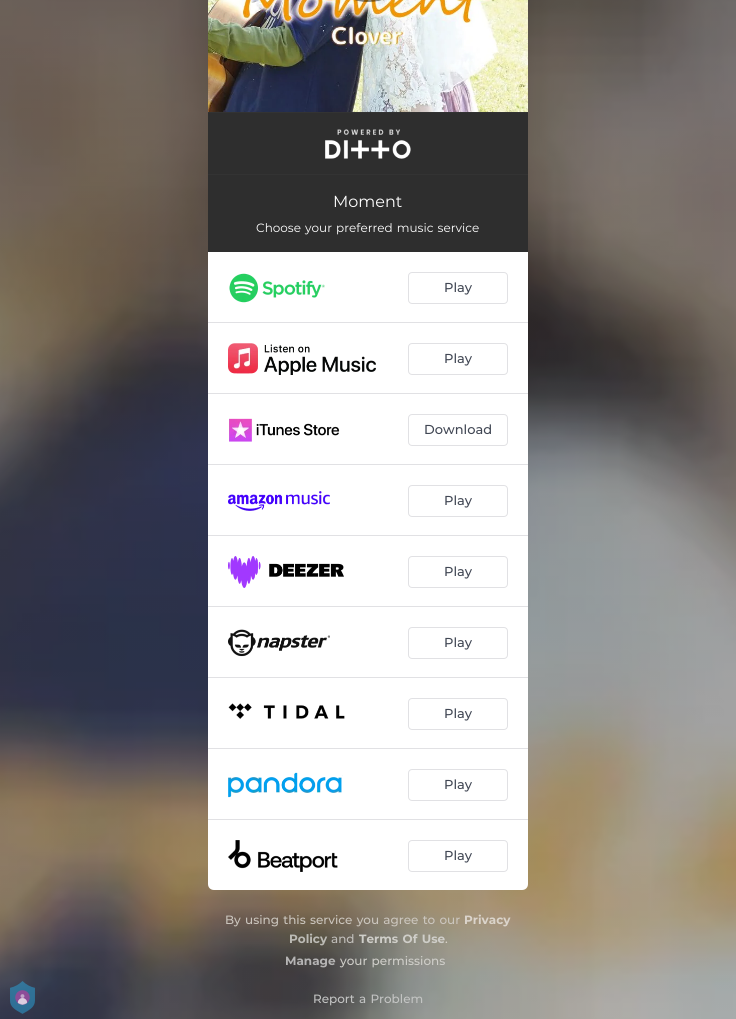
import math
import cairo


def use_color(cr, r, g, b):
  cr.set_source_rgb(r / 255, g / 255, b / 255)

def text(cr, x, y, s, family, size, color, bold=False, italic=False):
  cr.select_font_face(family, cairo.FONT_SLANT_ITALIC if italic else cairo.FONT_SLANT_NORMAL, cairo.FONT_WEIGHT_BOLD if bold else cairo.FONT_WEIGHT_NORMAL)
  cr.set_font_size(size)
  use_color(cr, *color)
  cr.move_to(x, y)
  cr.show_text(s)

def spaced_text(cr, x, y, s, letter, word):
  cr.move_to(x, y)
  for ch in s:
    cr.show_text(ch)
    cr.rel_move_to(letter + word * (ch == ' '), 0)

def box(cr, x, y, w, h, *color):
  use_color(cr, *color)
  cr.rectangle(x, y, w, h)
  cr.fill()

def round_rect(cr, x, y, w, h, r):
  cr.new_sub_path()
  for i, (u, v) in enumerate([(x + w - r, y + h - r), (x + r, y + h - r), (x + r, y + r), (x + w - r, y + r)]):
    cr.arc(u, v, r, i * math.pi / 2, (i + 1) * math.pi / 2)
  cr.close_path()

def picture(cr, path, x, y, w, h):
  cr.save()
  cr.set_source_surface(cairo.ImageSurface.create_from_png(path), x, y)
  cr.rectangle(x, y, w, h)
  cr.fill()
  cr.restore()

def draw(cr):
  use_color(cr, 255, 255, 255)
  cr.paint()
  picture(cr, "img_02.png", 0, 0, 736, 1019)
  picture(cr, "img_01.png", 10, 981, 25, 33)
  picture(cr, "img_03.png", 208, 0, 320, 112)
  cr.set_source_rgba(0, 0, 0, 0.45)
  round_rect(cr, 318, -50, 100, 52, 50)
  cr.fill()
  box(cr, 208, 113, 320, 61, 46, 46, 46)
  box(cr, 208, 112, 320, 1, 51, 51, 51)
  box(cr, 208, 174, 320, 1, 51, 51, 51)
  picture(cr, "img_04.png", 325, 129, 86, 30)
  box(cr, 208, 175, 320, 77, 46, 46, 46)
  use_color(cr, 255, 255, 255)
  cr.new_path()
  cr.move_to(208, 252)
  cr.line_to(528, 252)
  cr.line_to(528, 884)
  cr.curve_to(528, 887.5, 525.5, 890, 522, 890)
  cr.line_to(214, 890)
  cr.curve_to(210.5, 890, 208, 887.5, 208, 884)
  cr.close_path()
  cr.fill()
  box(cr, 208, 322, 320, 1, 225, 225, 228)
  picture(cr, "img_05.png", 229, 273, 96, 30)
  round_rect(cr, 408.5, 272.5, 99, 31, 3.5)
  cr.set_line_width(1)
  cr.stroke()
  box(cr, 208, 393, 320, 1, 225, 225, 228)
  picture(cr, "img_06.png", 228, 343, 148, 32)
  round_rect(cr, 408.5, 343.5, 99, 31, 3.5)
  cr.stroke()
  box(cr, 208, 464, 320, 1, 225, 225, 228)
  picture(cr, "img_07.png", 229, 418, 111, 24)
  round_rect(cr, 408.5, 414.5, 99, 31, 3.5)
  cr.stroke()
  box(cr, 208, 535, 320, 1, 225, 225, 228)
  picture(cr, "img_08.png", 228, 491, 102, 20)
  round_rect(cr, 408.5, 485.5, 99, 31, 3.5)
  cr.stroke()
  box(cr, 208, 606, 320, 1, 225, 225, 228)
  picture(cr, "img_09.png", 228, 556, 116, 32)
  round_rect(cr, 408.5, 556.5, 99, 31, 3.5)
  cr.stroke()
  box(cr, 208, 677, 320, 1, 225, 225, 228)
  picture(cr, "img_10.png", 228, 629, 102, 28)
  round_rect(cr, 408.5, 627.5, 99, 31, 3.5)
  cr.stroke()
  box(cr, 208, 748, 320, 1, 225, 225, 228)
  picture(cr, "img_11.png", 228, 703, 117, 16)
  round_rect(cr, 408.5, 698.5, 99, 31, 3.5)
  cr.stroke()
  box(cr, 208, 819, 320, 1, 225, 225, 228)
  picture(cr, "img_12.png", 228, 772, 115, 26)
  round_rect(cr, 408.5, 769.5, 99, 31, 3.5)
  cr.stroke()
  picture(cr, "img_13.png", 228, 840, 110, 32)
  round_rect(cr, 408.5, 840.5, 99, 31, 3.5)
  cr.stroke()
  text(cr, 333, 207, "Moment", "Montserrat", 16, (255, 255, 255))
  cr.set_font_size(12)
  spaced_text(cr, 256, 232, "Choose your preferred music service", 0, 1)
  text(cr, 444, 292, "Play", "Montserrat Medium", 13, (65, 71, 84))
  text(cr, 444, 363, "Play", "Montserrat Medium", 13, (65, 71, 84))
  text(cr, 424, 434, "Download", "Montserrat Medium", 13, (65, 71, 84))
  text(cr, 444, 505, "Play", "Montserrat Medium", 13, (65, 71, 84))
  text(cr, 444, 576, "Play", "Montserrat Medium", 13, (65, 71, 84))
  text(cr, 444, 647, "Play", "Montserrat Medium", 13, (65, 71, 84))
  text(cr, 444, 718, "Play", "Montserrat Medium", 13, (65, 71, 84))
  text(cr, 444, 789, "Play", "Montserrat Medium", 13, (65, 71, 84))
  text(cr, 444, 860, "Play", "Montserrat Medium", 13, (65, 71, 84))
  cr.set_font_size(12)
  use_color(cr, 203, 198, 190)
  spaced_text(cr, 225, 924, "By using this service you agree to our", 0, 1)
  text(cr, 464, 924, "Privacy", "Montserrat", 12, (219, 212, 203), bold=True)
  text(cr, 289, 943, "Policy", "Montserrat", 12, (188, 187, 181), bold=True)
  text(cr, 331, 943, "and", "Montserrat Medium", 12, (193, 191, 187))
  cr.select_font_face("Montserrat", cairo.FONT_SLANT_NORMAL, cairo.FONT_WEIGHT_BOLD)
  use_color(cr, 207, 206, 201)
  spaced_text(cr, 359, 943, "Terms Of Use", 0, 1)
  text(cr, 445, 943, ".", "Montserrat Medium", 12, (219, 212, 203))
  text(cr, 285, 965, "Manage", "Montserrat", 12, (181, 180, 180), bold=True)
  cr.select_font_face("Montserrat Medium")
  use_color(cr, 207, 206, 201)
  spaced_text(cr, 340, 965, "your permissions", 0, 1)
  use_color(cr, 195, 196, 195)
  spaced_text(cr, 313, 1003, "Report a Problem", 0, 1)


surface = cairo.ImageSurface(cairo.FORMAT_RGB24, 736, 1019)
cr = cairo.Context(surface)
options = cairo.FontOptions()
options.set_hint_metrics(cairo.HINT_METRICS_OFF)
options.set_hint_style(cairo.HINT_STYLE_NONE)
cr.set_font_options(options)
cr.set_miter_limit(4)
draw(cr)
surface.write_to_png("out.png")
